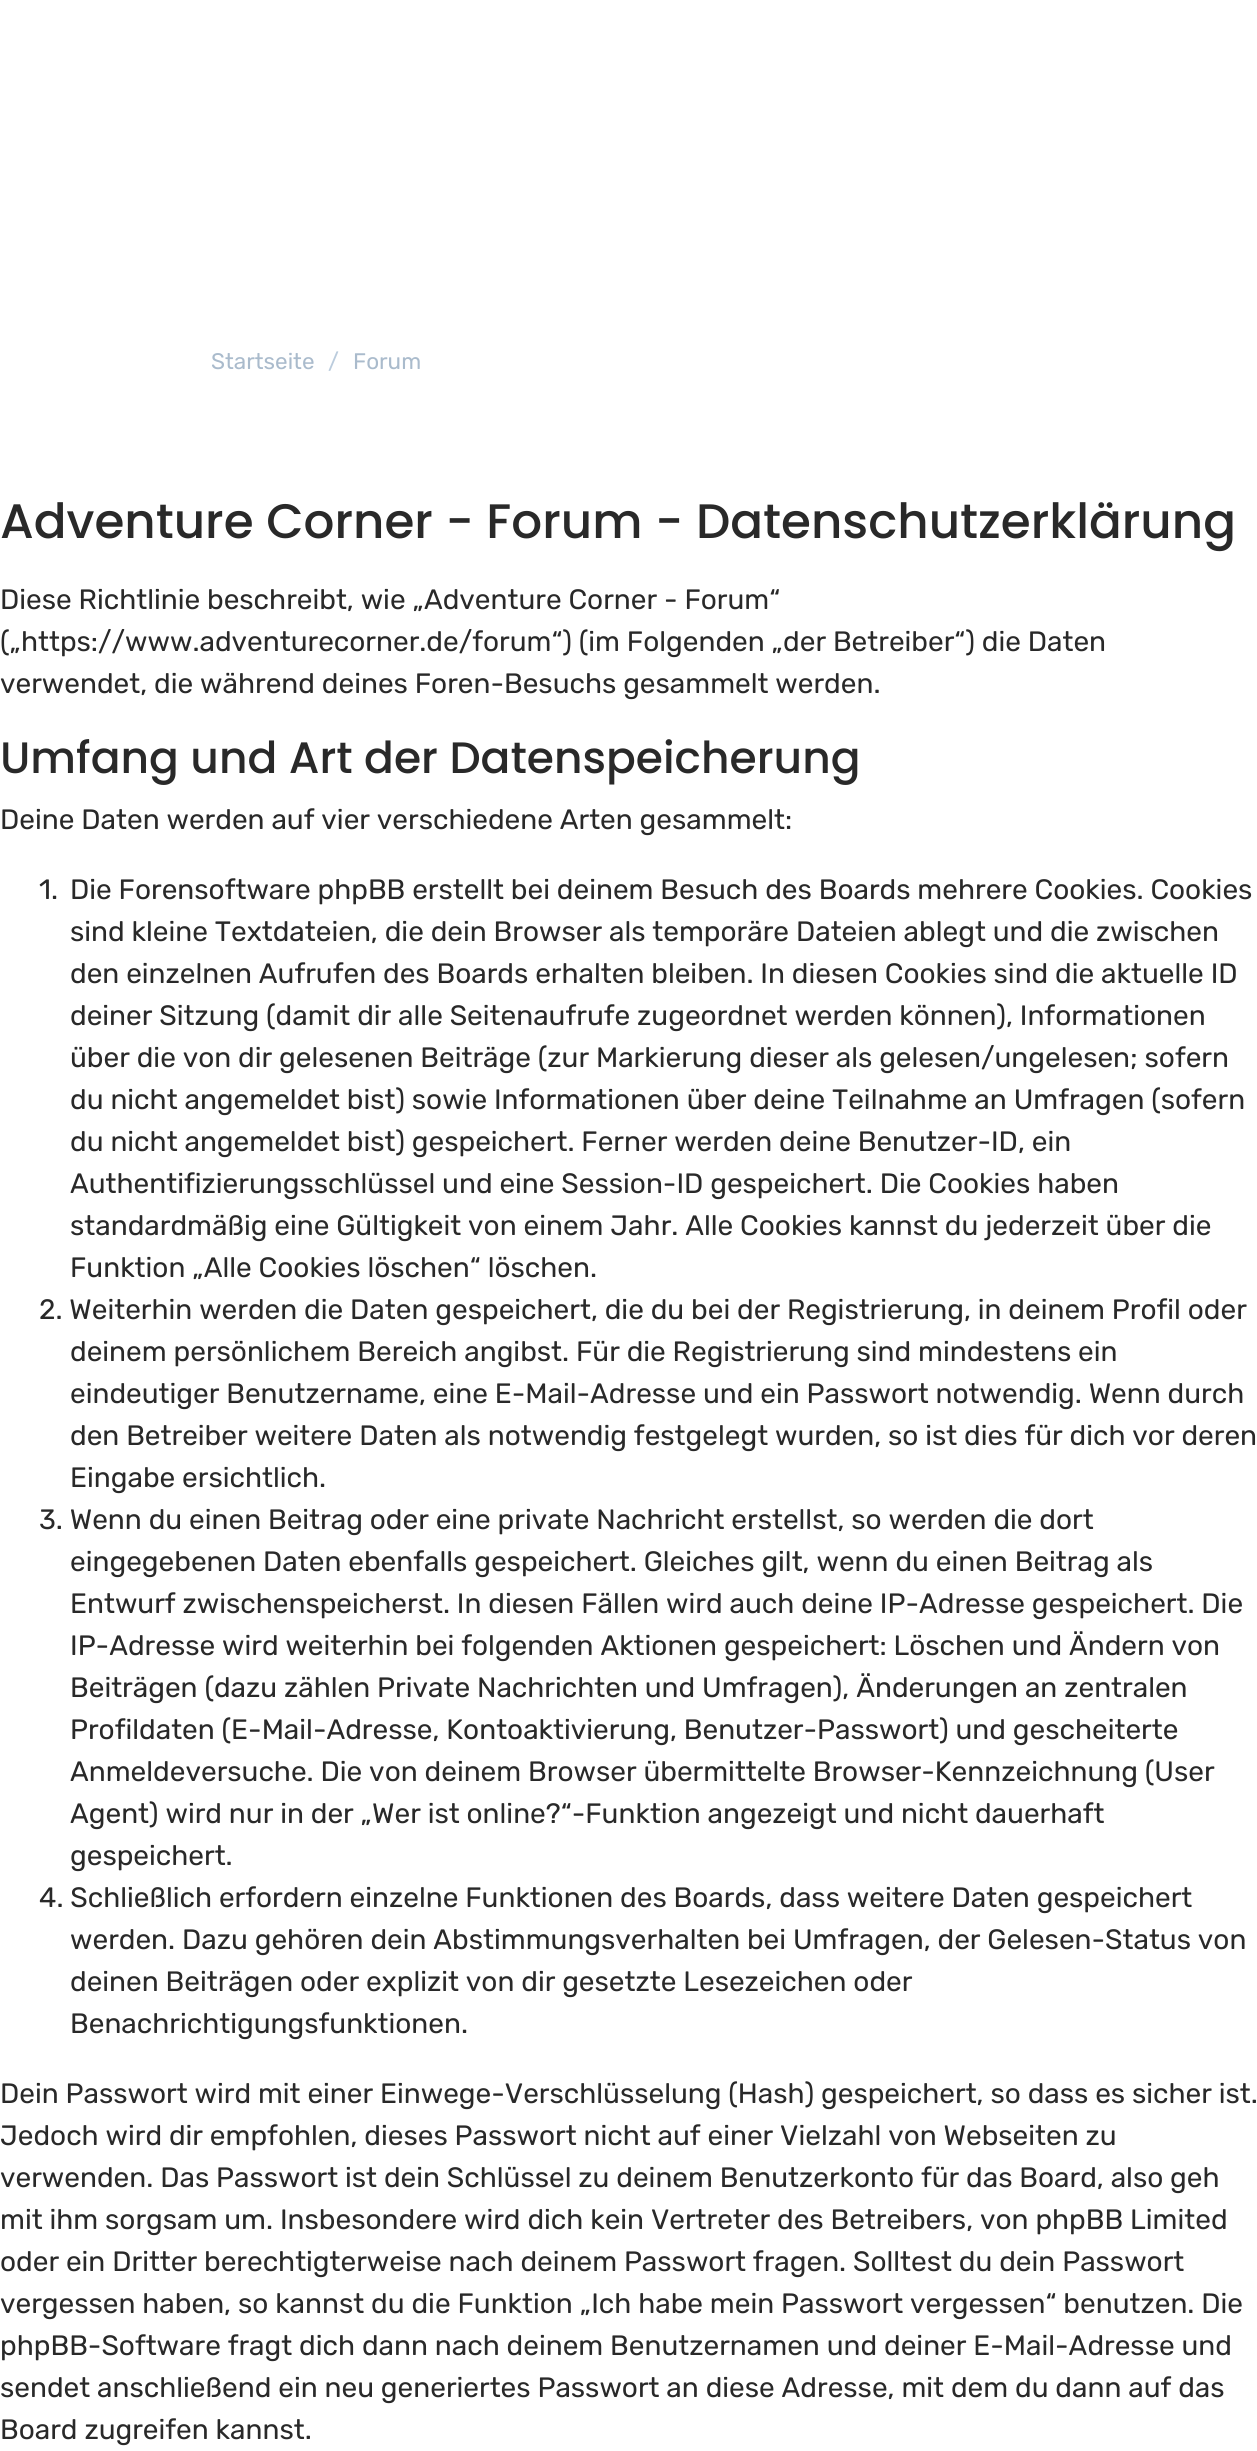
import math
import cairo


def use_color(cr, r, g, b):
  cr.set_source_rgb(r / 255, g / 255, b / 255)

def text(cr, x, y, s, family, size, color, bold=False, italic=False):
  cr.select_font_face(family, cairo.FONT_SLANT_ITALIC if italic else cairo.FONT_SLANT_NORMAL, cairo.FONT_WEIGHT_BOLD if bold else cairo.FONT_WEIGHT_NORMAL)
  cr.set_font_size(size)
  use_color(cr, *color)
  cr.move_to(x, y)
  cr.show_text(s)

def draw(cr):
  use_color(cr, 255, 255, 255)
  cr.paint()
  text(cr, 211, 369, "Startseite", "Rubik", 22.5, (170, 187, 204))
  text(cr, 328, 369, "/", "Rubik", 22.5, (187, 204, 221))
  text(cr, 353, 369, "Forum", "Rubik", 22.5, (170, 187, 204))
  text(cr, 0, 538, "Adventure Corner - Forum - Datenschutzerklärung", "Poppins Medium", 48.4, (41, 41, 41))
  text(cr, 0, 609, "Diese Richtlinie beschreibt, wie „Adventure Corner - Forum“", "Rubik", 28, (41, 41, 41))
  text(cr, 0, 651, "(„https://www.adventurecorner.de/forum“) (im Folgenden „der Betreiber“) die Daten", "Rubik", 28, (41, 41, 41))
  text(cr, 0, 693, "verwendet, die während deines Foren-Besuchs gesammelt werden.", "Rubik", 28, (41, 41, 41))
  text(cr, 0, 773, "Umfang und Art der Datenspeicherung", "Poppins Medium", 44, (41, 41, 41))
  text(cr, 0, 829, "Deine Daten werden auf vier verschiedene Arten gesammelt:", "Rubik", 28, (41, 41, 41))
  text(cr, 39, 899, "1.", "Rubik", 28, (41, 41, 41))
  text(cr, 70, 899, "Die Forensoftware phpBB erstellt bei deinem Besuch des Boards mehrere Cookies. Cookies", "Rubik", 28, (41, 41, 41))
  text(cr, 70, 941, "sind kleine Textdateien, die dein Browser als temporäre Dateien ablegt und die zwischen", "Rubik", 28, (41, 41, 41))
  text(cr, 70, 983, "den einzelnen Aufrufen des Boards erhalten bleiben. In diesen Cookies sind die aktuelle ID", "Rubik", 28, (41, 41, 41))
  text(cr, 70, 1025, "deiner Sitzung (damit dir alle Seitenaufrufe zugeordnet werden können), Informationen", "Rubik", 28, (41, 41, 41))
  text(cr, 70, 1067, "über die von dir gelesenen Beiträge (zur Markierung dieser als gelesen/ungelesen; sofern", "Rubik", 28, (41, 41, 41))
  text(cr, 70, 1109, "du nicht angemeldet bist) sowie Informationen über deine Teilnahme an Umfragen (sofern", "Rubik", 28, (41, 41, 41))
  text(cr, 70, 1151, "du nicht angemeldet bist) gespeichert. Ferner werden deine Benutzer-ID, ein", "Rubik", 28, (41, 41, 41))
  text(cr, 70, 1193, "Authentifizierungsschlüssel und eine Session-ID gespeichert. Die Cookies haben", "Rubik", 28, (41, 41, 41))
  text(cr, 70, 1235, "standardmäßig eine Gültigkeit von einem Jahr. Alle Cookies kannst du jederzeit über die", "Rubik", 28, (41, 41, 41))
  text(cr, 70, 1277, "Funktion „Alle Cookies löschen“ löschen.", "Rubik", 28, (41, 41, 41))
  text(cr, 39, 1319, "2. Weiterhin werden die Daten gespeichert, die du bei der Registrierung, in deinem Profil oder", "Rubik", 28, (41, 41, 41))
  text(cr, 70, 1361, "deinem persönlichem Bereich angibst. Für die Registrierung sind mindestens ein", "Rubik", 28, (41, 41, 41))
  text(cr, 70, 1403, "eindeutiger Benutzername, eine E-Mail-Adresse und ein Passwort notwendig. Wenn durch", "Rubik", 28, (41, 41, 41))
  text(cr, 70, 1445, "den Betreiber weitere Daten als notwendig festgelegt wurden, so ist dies für dich vor deren", "Rubik", 28, (41, 41, 41))
  text(cr, 70, 1487, "Eingabe ersichtlich.", "Rubik", 28, (41, 41, 41))
  text(cr, 39, 1529, "3. Wenn du einen Beitrag oder eine private Nachricht erstellst, so werden die dort", "Rubik", 28, (41, 41, 41))
  text(cr, 70, 1571, "eingegebenen Daten ebenfalls gespeichert. Gleiches gilt, wenn du einen Beitrag als", "Rubik", 28, (41, 41, 41))
  text(cr, 70, 1613, "Entwurf zwischenspeicherst. In diesen Fällen wird auch deine IP-Adresse gespeichert. Die", "Rubik", 28, (41, 41, 41))
  text(cr, 70, 1655, "IP-Adresse wird weiterhin bei folgenden Aktionen gespeichert: Löschen und Ändern von", "Rubik", 28, (41, 41, 41))
  text(cr, 70, 1697, "Beiträgen (dazu zählen Private Nachrichten und Umfragen), Änderungen an zentralen", "Rubik", 28, (41, 41, 41))
  text(cr, 70, 1739, "Profildaten (E-Mail-Adresse, Kontoaktivierung, Benutzer-Passwort) und gescheiterte", "Rubik", 28, (41, 41, 41))
  text(cr, 70, 1781, "Anmeldeversuche. Die von deinem Browser übermittelte Browser-Kennzeichnung (User", "Rubik", 28, (41, 41, 41))
  text(cr, 70, 1823, "Agent) wird nur in der „Wer ist online?“-Funktion angezeigt und nicht dauerhaft", "Rubik", 28, (41, 41, 41))
  text(cr, 70, 1865, "gespeichert.", "Rubik", 28, (41, 41, 41))
  text(cr, 39, 1907, "4. Schließlich erfordern einzelne Funktionen des Boards, dass weitere Daten gespeichert", "Rubik", 28, (41, 41, 41))
  text(cr, 70, 1949, "werden. Dazu gehören dein Abstimmungsverhalten bei Umfragen, der Gelesen-Status von", "Rubik", 28, (41, 41, 41))
  text(cr, 70, 1991, "deinen Beiträgen oder explizit von dir gesetzte Lesezeichen oder", "Rubik", 28, (41, 41, 41))
  text(cr, 70, 2033, "Benachrichtigungsfunktionen.", "Rubik", 28, (41, 41, 41))
  text(cr, 0, 2103, "Dein Passwort wird mit einer Einwege-Verschlüsselung (Hash) gespeichert, so dass es sicher ist.", "Rubik", 28, (41, 41, 41))
  text(cr, 0, 2145, "Jedoch wird dir empfohlen, dieses Passwort nicht auf einer Vielzahl von Webseiten zu", "Rubik", 28, (41, 41, 41))
  text(cr, 0, 2187, "verwenden. Das Passwort ist dein Schlüssel zu deinem Benutzerkonto für das Board, also geh", "Rubik", 28, (41, 41, 41))
  text(cr, 0, 2229, "mit ihm sorgsam um. Insbesondere wird dich kein Vertreter des Betreibers, von phpBB Limited", "Rubik", 28, (41, 41, 41))
  text(cr, 0, 2271, "oder ein Dritter berechtigterweise nach deinem Passwort fragen. Solltest du dein Passwort", "Rubik", 28, (41, 41, 41))
  text(cr, 0, 2313, "vergessen haben, so kannst du die Funktion „Ich habe mein Passwort vergessen“ benutzen. Die", "Rubik", 28, (41, 41, 41))
  text(cr, 0, 2355, "phpBB-Software fragt dich dann nach deinem Benutzernamen und deiner E-Mail-Adresse und", "Rubik", 28, (41, 41, 41))
  text(cr, 0, 2397, "sendet anschließend ein neu generiertes Passwort an diese Adresse, mit dem du dann auf das", "Rubik", 28, (41, 41, 41))
  text(cr, 0, 2439, "Board zugreifen kannst.", "Rubik", 28, (41, 41, 41))


surface = cairo.ImageSurface(cairo.FORMAT_RGB24, 1257, 2451)
cr = cairo.Context(surface)
options = cairo.FontOptions()
options.set_hint_metrics(cairo.HINT_METRICS_OFF)
options.set_hint_style(cairo.HINT_STYLE_NONE)
cr.set_font_options(options)
cr.set_miter_limit(4)
draw(cr)
surface.write_to_png("out.png")
